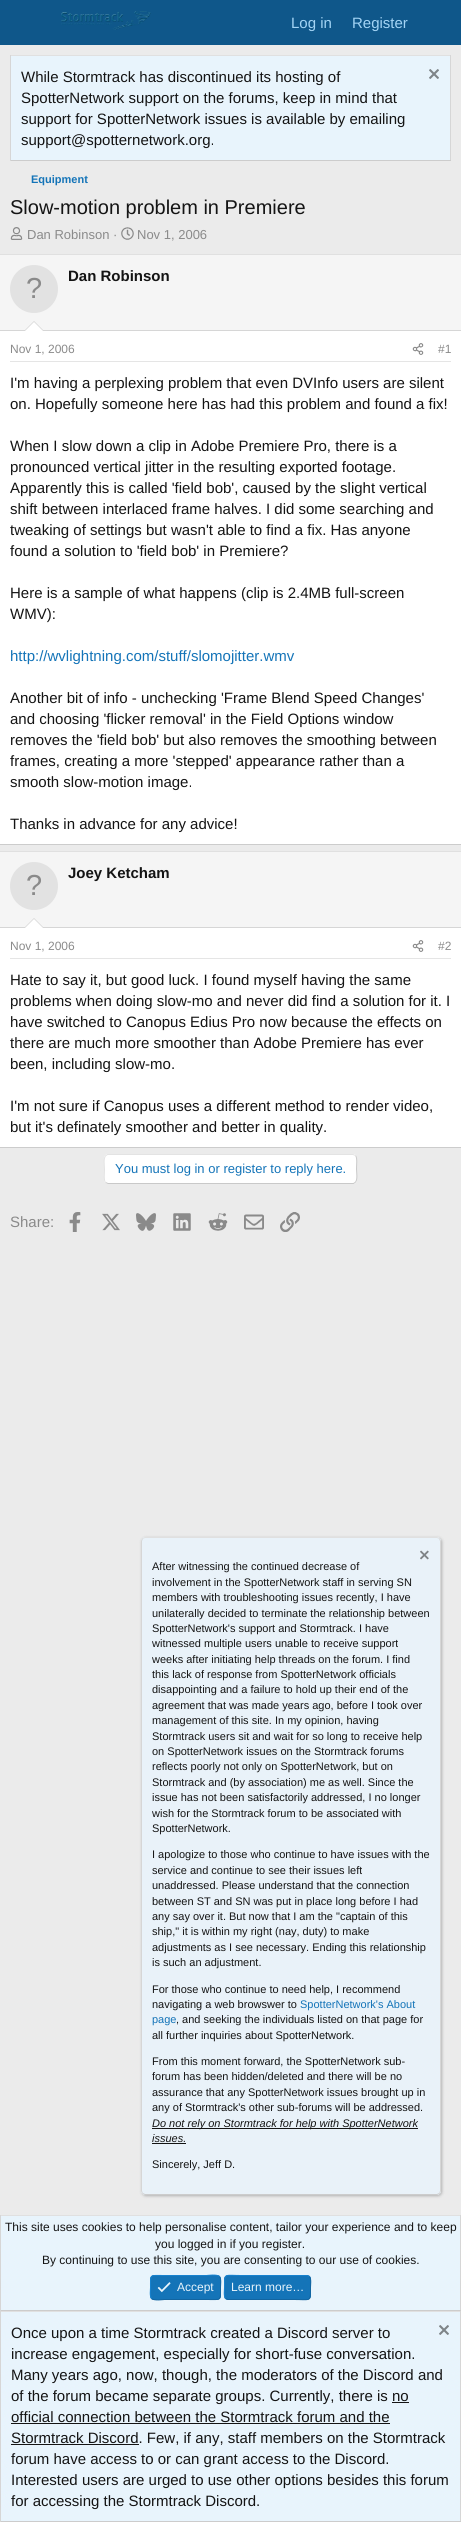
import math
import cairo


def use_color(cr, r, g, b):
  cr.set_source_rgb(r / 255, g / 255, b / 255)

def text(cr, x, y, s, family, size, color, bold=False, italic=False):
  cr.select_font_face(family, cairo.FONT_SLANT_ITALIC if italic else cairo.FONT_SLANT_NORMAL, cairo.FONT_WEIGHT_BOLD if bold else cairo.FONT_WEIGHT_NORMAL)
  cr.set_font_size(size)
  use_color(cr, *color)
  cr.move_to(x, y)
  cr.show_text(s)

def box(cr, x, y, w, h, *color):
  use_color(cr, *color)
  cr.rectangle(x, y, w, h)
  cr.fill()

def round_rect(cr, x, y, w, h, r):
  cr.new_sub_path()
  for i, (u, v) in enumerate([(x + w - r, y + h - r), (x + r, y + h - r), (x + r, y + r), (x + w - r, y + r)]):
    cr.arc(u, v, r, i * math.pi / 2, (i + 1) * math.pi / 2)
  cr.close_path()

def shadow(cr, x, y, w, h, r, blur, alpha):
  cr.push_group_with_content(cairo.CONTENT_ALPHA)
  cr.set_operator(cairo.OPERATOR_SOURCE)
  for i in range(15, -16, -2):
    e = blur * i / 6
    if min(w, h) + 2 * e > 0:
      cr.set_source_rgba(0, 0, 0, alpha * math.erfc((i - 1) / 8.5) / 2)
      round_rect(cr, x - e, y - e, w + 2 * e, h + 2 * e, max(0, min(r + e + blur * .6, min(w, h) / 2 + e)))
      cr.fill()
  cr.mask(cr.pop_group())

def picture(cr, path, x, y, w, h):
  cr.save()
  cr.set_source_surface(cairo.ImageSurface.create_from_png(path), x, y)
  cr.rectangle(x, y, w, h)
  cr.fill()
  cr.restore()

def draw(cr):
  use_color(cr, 235, 235, 235)
  cr.paint()
  box(cr, 0, 0, 461, 45, 15, 87, 138)
  picture(cr, "img_01.png", 61, 11, 90, 19)
  box(cr, 10, 55, 441, 1, 224, 224, 224)
  box(cr, 450, 55, 1, 106, 214, 214, 214)
  box(cr, 10, 160, 441, 1, 204, 204, 204)
  box(cr, 10, 55, 1, 106, 214, 214, 214)
  box(cr, 11, 56, 439, 104, 232, 244, 252)
  picture(cr, "img_02.png", 429, 69, 10, 10)
  picture(cr, "img_03.png", 10, 227, 13, 13)
  picture(cr, "img_04.png", 121, 227, 13, 13)
  box(cr, 0, 331, 461, 513, 255, 255, 255)
  box(cr, 0, 254, 461, 1, 224, 224, 224)
  box(cr, 0, 844, 461, 1, 204, 204, 204)
  box(cr, 0, 255, 461, 75, 245, 245, 245)
  box(cr, 0, 330, 461, 1, 214, 214, 214)
  use_color(cr, 226, 226, 226)
  cr.arc(34, 289, 24, 0, 2 * math.pi)
  cr.fill()
  use_color(cr, 214, 214, 214)
  cr.new_path()
  cr.move_to(44, 331)
  cr.line_to(24, 331)
  cr.line_to(34, 321)
  cr.close_path()
  cr.fill()
  use_color(cr, 255, 255, 255)
  cr.new_path()
  cr.move_to(43, 331)
  cr.line_to(25, 331)
  cr.line_to(34, 322)
  cr.close_path()
  cr.fill()
  box(cr, 10, 361, 441, 1, 229, 229, 229)
  picture(cr, "img_05.png", 412, 343, 12, 12)
  box(cr, 0, 928, 461, 219, 255, 255, 255)
  box(cr, 0, 851, 461, 1, 224, 224, 224)
  box(cr, 0, 1147, 461, 1, 204, 204, 204)
  box(cr, 0, 852, 461, 75, 245, 245, 245)
  box(cr, 0, 927, 461, 1, 214, 214, 214)
  use_color(cr, 226, 226, 226)
  cr.arc(34, 886, 24, 0, 2 * math.pi)
  cr.fill()
  use_color(cr, 214, 214, 214)
  cr.new_path()
  cr.move_to(44, 928)
  cr.line_to(24, 928)
  cr.line_to(34, 918)
  cr.close_path()
  cr.fill()
  use_color(cr, 255, 255, 255)
  cr.new_path()
  cr.move_to(43, 928)
  cr.line_to(25, 928)
  cr.line_to(34, 919)
  cr.close_path()
  cr.fill()
  box(cr, 10, 958, 441, 1, 229, 229, 229)
  picture(cr, "img_05.png", 412, 940, 12, 12)
  use_color(cr, 255, 255, 255)
  round_rect(cr, 104, 1154, 253, 30, 4)
  cr.fill()
  cr.new_path()
  cr.move_to(355.5, 1155.5)
  cr.curve_to(357.5, 1157.5, 356.5, 1166, 356.5, 1169)
  cr.curve_to(356.5, 1172, 358, 1180.5, 355, 1182.5)
  cr.line_to(353.5, 1183.5)
  cr.line_to(108, 1183.5)
  cr.line_to(105.5, 1182.5)
  use_color(cr, 201, 201, 201)
  cr.set_line_width(1)
  cr.stroke()
  cr.new_path()
  cr.move_to(105.5, 1182.5)
  cr.curve_to(103.5, 1180.5, 104.5, 1172, 104.5, 1169)
  cr.curve_to(104.5, 1166, 103, 1157.5, 106, 1155.5)
  cr.line_to(107.5, 1154.5)
  cr.line_to(353, 1154.5)
  cr.line_to(355.5, 1155.5)
  use_color(cr, 227, 227, 227)
  cr.stroke()
  picture(cr, "img_06.png", 69, 1212, 12, 20)
  picture(cr, "img_07.png", 102, 1213, 18, 18)
  picture(cr, "img_08.png", 136, 1213, 20, 18)
  picture(cr, "img_09.png", 173, 1213, 18, 18)
  picture(cr, "img_10.png", 208, 1213, 20, 18)
  picture(cr, "img_11.png", 244, 1214, 20, 16)
  picture(cr, "img_12.png", 280, 1212, 20, 20)
  cr.save()
  cr.set_fill_rule(cairo.FILL_RULE_EVEN_ODD)
  cr.new_path()
  cr.move_to(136, 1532)
  cr.line_to(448, 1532)
  cr.line_to(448, 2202)
  cr.line_to(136, 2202)
  cr.close_path()
  cr.move_to(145, 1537)
  cr.line_to(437, 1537)
  cr.curve_to(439, 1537, 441, 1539, 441, 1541)
  cr.line_to(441, 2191)
  cr.curve_to(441, 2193, 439, 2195, 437, 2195)
  cr.line_to(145, 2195)
  cr.curve_to(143, 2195, 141, 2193, 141, 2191)
  cr.line_to(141, 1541)
  cr.curve_to(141, 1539, 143, 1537, 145, 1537)
  cr.close_path()
  cr.clip()
  use_color(cr, 0, 0, 0)
  shadow(cr, 142, 1538, 300, 658, 4, 1.5, 0.25)
  cr.restore()
  cr.set_source_rgba(0.91, 0.957, 0.988, 0.8)
  round_rect(cr, 141, 1537, 300, 658, 4)
  cr.fill()
  cr.new_path()
  cr.move_to(142.5, 1538.5)
  cr.line_to(145, 1537.5)
  cr.line_to(437, 1537.5)
  cr.line_to(439.5, 1538.5)
  use_color(cr, 224, 224, 224)
  cr.stroke()
  cr.new_path()
  cr.move_to(439.5, 1538.5)
  cr.line_to(440.5, 1541)
  cr.line_to(440.5, 2191)
  cr.line_to(439.5, 2193.5)
  use_color(cr, 214, 214, 214)
  cr.stroke()
  cr.new_path()
  cr.move_to(439.5, 2193.5)
  cr.line_to(437, 2194.5)
  cr.line_to(145, 2194.5)
  cr.line_to(142.5, 2193.5)
  use_color(cr, 204, 204, 204)
  cr.stroke()
  cr.new_path()
  cr.move_to(142.5, 2193.5)
  cr.line_to(141.5, 2191)
  cr.line_to(141.5, 1541)
  cr.line_to(142.5, 1538.5)
  use_color(cr, 214, 214, 214)
  cr.stroke()
  picture(cr, "img_13.png", 420, 1550, 9, 10)
  box(cr, 152, 2128, 266, 1, 20, 20, 20)
  box(cr, 152, 2143, 34, 1, 20, 20, 20)
  box(cr, 1, 2216, 459, 94, 232, 244, 252)
  box(cr, 0, 2215, 461, 1, 224, 224, 224)
  box(cr, 460, 2215, 1, 96, 214, 214, 214)
  box(cr, 0, 2310, 461, 1, 204, 204, 204)
  box(cr, 0, 2215, 1, 96, 214, 214, 214)
  use_color(cr, 20, 116, 184)
  round_rect(cr, 150, 2275, 71, 25, 4)
  cr.fill()
  cr.new_path()
  cr.move_to(219.5, 2276.5)
  cr.curve_to(221.5, 2279, 220.5, 2285, 220.5, 2287.5)
  cr.curve_to(220.5, 2301.5, 221.5, 2299.5, 206.5, 2299.5)
  cr.line_to(164.5, 2299.5)
  cr.curve_to(163.5, 2299.5, 154, 2301, 151.5, 2298.5)
  use_color(cr, 18, 101, 161)
  cr.stroke()
  cr.new_path()
  cr.move_to(151.5, 2298.5)
  cr.curve_to(149.5, 2296, 150.5, 2290, 150.5, 2287.5)
  cr.curve_to(150.5, 2273.5, 149.5, 2275.5, 164.5, 2275.5)
  cr.line_to(206.5, 2275.5)
  cr.curve_to(207.5, 2275.5, 217, 2274, 219.5, 2276.5)
  use_color(cr, 23, 130, 207)
  cr.stroke()
  picture(cr, "img_14.png", 157, 2282, 14, 11)
  use_color(cr, 20, 116, 184)
  round_rect(cr, 224, 2275, 87, 25, 4)
  cr.fill()
  cr.new_path()
  cr.move_to(309.5, 2276.5)
  cr.curve_to(311.5, 2279, 310.5, 2285, 310.5, 2287.5)
  cr.curve_to(310.5, 2302.5, 311, 2299.5, 294, 2299.5)
  cr.line_to(228, 2299.5)
  cr.line_to(225.5, 2298.5)
  use_color(cr, 18, 101, 161)
  cr.stroke()
  cr.new_path()
  cr.move_to(225.5, 2298.5)
  cr.curve_to(223.5, 2296, 224.5, 2290, 224.5, 2287.5)
  cr.curve_to(224.5, 2272.5, 224, 2275.5, 241, 2275.5)
  cr.line_to(307, 2275.5)
  cr.line_to(309.5, 2276.5)
  use_color(cr, 23, 130, 207)
  cr.stroke()
  box(cr, 1, 2312, 459, 209, 232, 244, 252)
  box(cr, 0, 2311, 461, 1, 224, 224, 224)
  box(cr, 460, 2311, 1, 211, 214, 214, 214)
  box(cr, 0, 2521, 461, 1, 204, 204, 204)
  box(cr, 0, 2311, 1, 211, 214, 214, 214)
  picture(cr, "img_02.png", 439, 2325, 10, 10)
  box(cr, 392, 2402, 17, 1, 20, 20, 20)
  box(cr, 11, 2423, 379, 1, 20, 20, 20)
  box(cr, 11, 2444, 128, 1, 20, 20, 20)
  text(cr, 291, 28, "Log in", "Liberation Sans", 15, (163, 212, 245))
  text(cr, 352, 28, "Register", "Liberation Sans", 15, (163, 212, 245))
  text(cr, 21, 82, "While Stormtrack has discontinued its hosting of", "Liberation Sans", 15, (20, 20, 20))
  text(cr, 21, 103, "SpotterNetwork support on the forums, keep in mind that", "Liberation Sans", 15, (20, 20, 20))
  text(cr, 21, 124, "support for SpotterNetwork issues is available by emailing", "Liberation Sans", 15, (20, 20, 20))
  text(cr, 21, 145, "support@spotternetwork.org.", "Liberation Sans", 15, (20, 20, 20))
  text(cr, 31, 183, "Equipment", "Liberation Sans", 11, (20, 116, 184), bold=True)
  text(cr, 10, 214, "Slow-motion problem in Premiere", "Liberation Sans", 20, (20, 20, 20))
  text(cr, 27, 239, "Dan Robinson ·", "Liberation Sans", 13, (138, 138, 138))
  text(cr, 137, 239, "Nov 1, 2006", "Liberation Sans", 13, (138, 138, 138))
  text(cr, 26, 298, "?", "Liberation Sans", 29, (138, 138, 138))
  text(cr, 68, 281, "Dan Robinson", "Liberation Sans", 15, (20, 20, 20), bold=True)
  text(cr, 10, 353, "Nov 1, 2006", "Liberation Sans", 12, (138, 138, 138))
  text(cr, 438, 353, "#1", "Liberation Sans", 12, (138, 138, 138))
  text(cr, 10, 388, "I'm having a perplexing problem that even DVInfo users are silent", "Liberation Sans", 15, (20, 20, 20))
  text(cr, 10, 409, "on. Hopefully someone here has had this problem and found a fix!", "Liberation Sans", 15, (20, 20, 20))
  text(cr, 10, 451, "When I slow down a clip in Adobe Premiere Pro, there is a", "Liberation Sans", 15, (20, 20, 20))
  text(cr, 10, 472, "pronounced vertical jitter in the resulting exported footage.", "Liberation Sans", 15, (20, 20, 20))
  text(cr, 10, 493, "Apparently this is called 'field bob', caused by the slight vertical", "Liberation Sans", 15, (20, 20, 20))
  text(cr, 10, 514, "shift between interlaced frame halves. I did some searching and", "Liberation Sans", 15, (20, 20, 20))
  text(cr, 10, 535, "tweaking of settings but wasn't able to find a fix. Has anyone", "Liberation Sans", 15, (20, 20, 20))
  text(cr, 10, 556, "found a solution to 'field bob' in Premiere?", "Liberation Sans", 15, (20, 20, 20))
  text(cr, 10, 598, "Here is a sample of what happens (clip is 2.4MB full-screen", "Liberation Sans", 15, (20, 20, 20))
  text(cr, 10, 619, "WMV):", "Liberation Sans", 15, (20, 20, 20))
  text(cr, 10, 661, "http://wvlightning.com/stuff/slomojitter.wmv", "Liberation Sans", 15, (20, 116, 184))
  text(cr, 10, 703, "Another bit of info - unchecking 'Frame Blend Speed Changes'", "Liberation Sans", 15, (20, 20, 20))
  text(cr, 10, 724, "and choosing 'flicker removal' in the Field Options window", "Liberation Sans", 15, (20, 20, 20))
  text(cr, 10, 745, "removes the 'field bob' but also removes the smoothing between", "Liberation Sans", 15, (20, 20, 20))
  text(cr, 10, 766, "frames, creating a more 'stepped' appearance rather than a", "Liberation Sans", 15, (20, 20, 20))
  text(cr, 10, 787, "smooth slow-motion image.", "Liberation Sans", 15, (20, 20, 20))
  text(cr, 10, 829, "Thanks in advance for any advice!", "Liberation Sans", 15, (20, 20, 20))
  text(cr, 26, 895, "?", "Liberation Sans", 29, (138, 138, 138))
  text(cr, 68, 878, "Joey Ketcham", "Liberation Sans", 15, (20, 20, 20), bold=True)
  text(cr, 10, 950, "Nov 1, 2006", "Liberation Sans", 12, (138, 138, 138))
  text(cr, 438, 950, "#2", "Liberation Sans", 12, (138, 138, 138))
  text(cr, 10, 985, "Hate to say it, but good luck. I found myself having the same", "Liberation Sans", 15, (20, 20, 20))
  text(cr, 10, 1006, "problems when doing slow-mo and never did find a solution for it. I", "Liberation Sans", 15, (20, 20, 20))
  text(cr, 10, 1027, "have switched to Canopus Edius Pro now because the effects on", "Liberation Sans", 15, (20, 20, 20))
  text(cr, 10, 1048, "there are much more smoother than Adobe Premiere has ever", "Liberation Sans", 15, (20, 20, 20))
  text(cr, 10, 1069, "been, including slow-mo.", "Liberation Sans", 15, (20, 20, 20))
  text(cr, 10, 1111, "I'm not sure if Canopus uses a different method to render video,", "Liberation Sans", 15, (20, 20, 20))
  text(cr, 10, 1132, "but it's definately smoother and better in quality.", "Liberation Sans", 15, (20, 20, 20))
  text(cr, 115, 1173, "You must log in or register to reply here.", "Liberation Sans", 13, (20, 116, 184))
  text(cr, 10, 1227, "Share:", "Liberation Sans", 15, (138, 138, 138))
  text(cr, 152, 1570, "After witnessing the continued decrease of", "Liberation Sans", 11, (20, 20, 20))
  text(cr, 152, 1586, "involvement in the SpotterNetwork staff in serving SN", "Liberation Sans", 11, (20, 20, 20))
  text(cr, 152, 1601, "members with troubleshooting issues recently, I have", "Liberation Sans", 11, (20, 20, 20))
  text(cr, 152, 1617, "unilaterally decided to terminate the relationship between", "Liberation Sans", 11, (20, 20, 20))
  text(cr, 152, 1632, "SpotterNetwork's support and Stormtrack. I have", "Liberation Sans", 11, (20, 20, 20))
  text(cr, 152, 1647, "witnessed multiple users unable to receive support", "Liberation Sans", 11, (20, 20, 20))
  text(cr, 152, 1663, "weeks after initiating help threads on the forum. I find", "Liberation Sans", 11, (20, 20, 20))
  text(cr, 152, 1678, "this lack of response from SpotterNetwork officials", "Liberation Sans", 11, (20, 20, 20))
  text(cr, 152, 1693, "disappointing and a failure to hold up their end of the", "Liberation Sans", 11, (20, 20, 20))
  text(cr, 152, 1709, "agreement that was made years ago, before I took over", "Liberation Sans", 11, (20, 20, 20))
  text(cr, 152, 1724, "management of this site. In my opinion, having", "Liberation Sans", 11, (20, 20, 20))
  text(cr, 152, 1740, "Stormtrack users sit and wait for so long to receive help", "Liberation Sans", 11, (20, 20, 20))
  text(cr, 152, 1755, "on SpotterNetwork issues on the Stormtrack forums", "Liberation Sans", 11, (20, 20, 20))
  text(cr, 152, 1770, "reflects poorly not only on SpotterNetwork, but on", "Liberation Sans", 11, (20, 20, 20))
  text(cr, 152, 1786, "Stormtrack and (by association) me as well. Since the", "Liberation Sans", 11, (20, 20, 20))
  text(cr, 152, 1801, "issue has not been satisfactorily addressed, I no longer", "Liberation Sans", 11, (20, 20, 20))
  text(cr, 152, 1817, "wish for the Stormtrack forum to be associated with", "Liberation Sans", 11, (20, 20, 20))
  text(cr, 152, 1832, "SpotterNetwork.", "Liberation Sans", 11, (20, 20, 20))
  text(cr, 152, 1858, "I apologize to those who continue to have issues with the", "Liberation Sans", 11, (20, 20, 20))
  text(cr, 152, 1874, "service and continue to see their issues left", "Liberation Sans", 11, (20, 20, 20))
  text(cr, 152, 1889, "unaddressed. Please understand that the connection", "Liberation Sans", 11, (20, 20, 20))
  text(cr, 152, 1905, "between ST and SN was put in place long before I had", "Liberation Sans", 11, (20, 20, 20))
  text(cr, 152, 1920, "any say over it. But now that I am the \"captain of this", "Liberation Sans", 11, (20, 20, 20))
  text(cr, 152, 1935, "ship,\" it is within my right (nay, duty) to make", "Liberation Sans", 11, (20, 20, 20))
  text(cr, 152, 1951, "adjustments as I see necessary. Ending this relationship", "Liberation Sans", 11, (20, 20, 20))
  text(cr, 152, 1966, "is such an adjustment.", "Liberation Sans", 11, (20, 20, 20))
  text(cr, 152, 1993, "For those who continue to need help, I recommend", "Liberation Sans", 11, (20, 20, 20))
  text(cr, 152, 2008, "navigating a web browswer to", "Liberation Sans", 11, (20, 20, 20))
  text(cr, 300, 2008, "SpotterNetwork's About", "Liberation Sans", 11, (20, 116, 184))
  text(cr, 152, 2023, "page", "Liberation Sans", 11, (20, 116, 184))
  text(cr, 176, 2023, ", and seeking the individuals listed on that page for", "Liberation Sans", 11, (20, 20, 20))
  text(cr, 152, 2039, "all further inquiries about SpotterNetwork.", "Liberation Sans", 11, (20, 20, 20))
  text(cr, 152, 2065, "From this moment forward, the SpotterNetwork sub-", "Liberation Sans", 11, (20, 20, 20))
  text(cr, 152, 2080, "forum has been hidden/deleted and there will be no", "Liberation Sans", 11, (20, 20, 20))
  text(cr, 152, 2096, "assurance that any SpotterNetwork issues brought up in", "Liberation Sans", 11, (20, 20, 20))
  text(cr, 152, 2111, "any of Stormtrack's other sub-forums will be addressed.", "Liberation Sans", 11, (20, 20, 20))
  text(cr, 152, 2127, "Do not rely on Stormtrack for help with SpotterNetwork", "Liberation Sans", 11, (20, 20, 20), italic=True)
  text(cr, 152, 2142, "issues.", "Liberation Sans", 11, (20, 20, 20), italic=True)
  text(cr, 152, 2168, "Sincerely, Jeff D.", "Liberation Sans", 11, (20, 20, 20))
  text(cr, 5, 2231, "This site uses cookies to help personalise content, tailor your experience and to keep", "Liberation Sans", 12, (20, 20, 20))
  text(cr, 155, 2248, "you logged in if you register.", "Liberation Sans", 12, (20, 20, 20))
  text(cr, 42, 2264, "By continuing to use this site, you are consenting to our use of cookies.", "Liberation Sans", 12, (20, 20, 20))
  text(cr, 177, 2291, "Accept", "Liberation Sans", 12, (232, 244, 252))
  text(cr, 231, 2291, "Learn more…", "Liberation Sans", 12, (232, 244, 252))
  text(cr, 11, 2338, "Once upon a time Stormtrack created a Discord server to", "Liberation Sans", 15, (20, 20, 20))
  text(cr, 11, 2359, "increase engagement, especially for short-fuse conversation.", "Liberation Sans", 15, (20, 20, 20))
  text(cr, 11, 2380, "Many years ago, now, though, the moderators of the Discord and", "Liberation Sans", 15, (20, 20, 20))
  text(cr, 11, 2401, "of the forum became separate groups. Currently, there is no", "Liberation Sans", 15, (20, 20, 20))
  text(cr, 11, 2422, "official connection between the Stormtrack forum and the", "Liberation Sans", 15, (20, 20, 20))
  text(cr, 11, 2443, "Stormtrack Discord. Few, if any, staff members on the Stormtrack", "Liberation Sans", 15, (20, 20, 20))
  text(cr, 11, 2464, "forum have access to or can grant access to the Discord.", "Liberation Sans", 15, (20, 20, 20))
  text(cr, 11, 2485, "Interested users are urged to use other options besides this forum", "Liberation Sans", 15, (20, 20, 20))
  text(cr, 11, 2506, "for accessing the Stormtrack Discord.", "Liberation Sans", 15, (20, 20, 20))


surface = cairo.ImageSurface(cairo.FORMAT_RGB24, 461, 2522)
cr = cairo.Context(surface)
options = cairo.FontOptions()
options.set_hint_metrics(cairo.HINT_METRICS_OFF)
options.set_hint_style(cairo.HINT_STYLE_NONE)
cr.set_font_options(options)
cr.set_miter_limit(4)
draw(cr)
surface.write_to_png("out.png")
